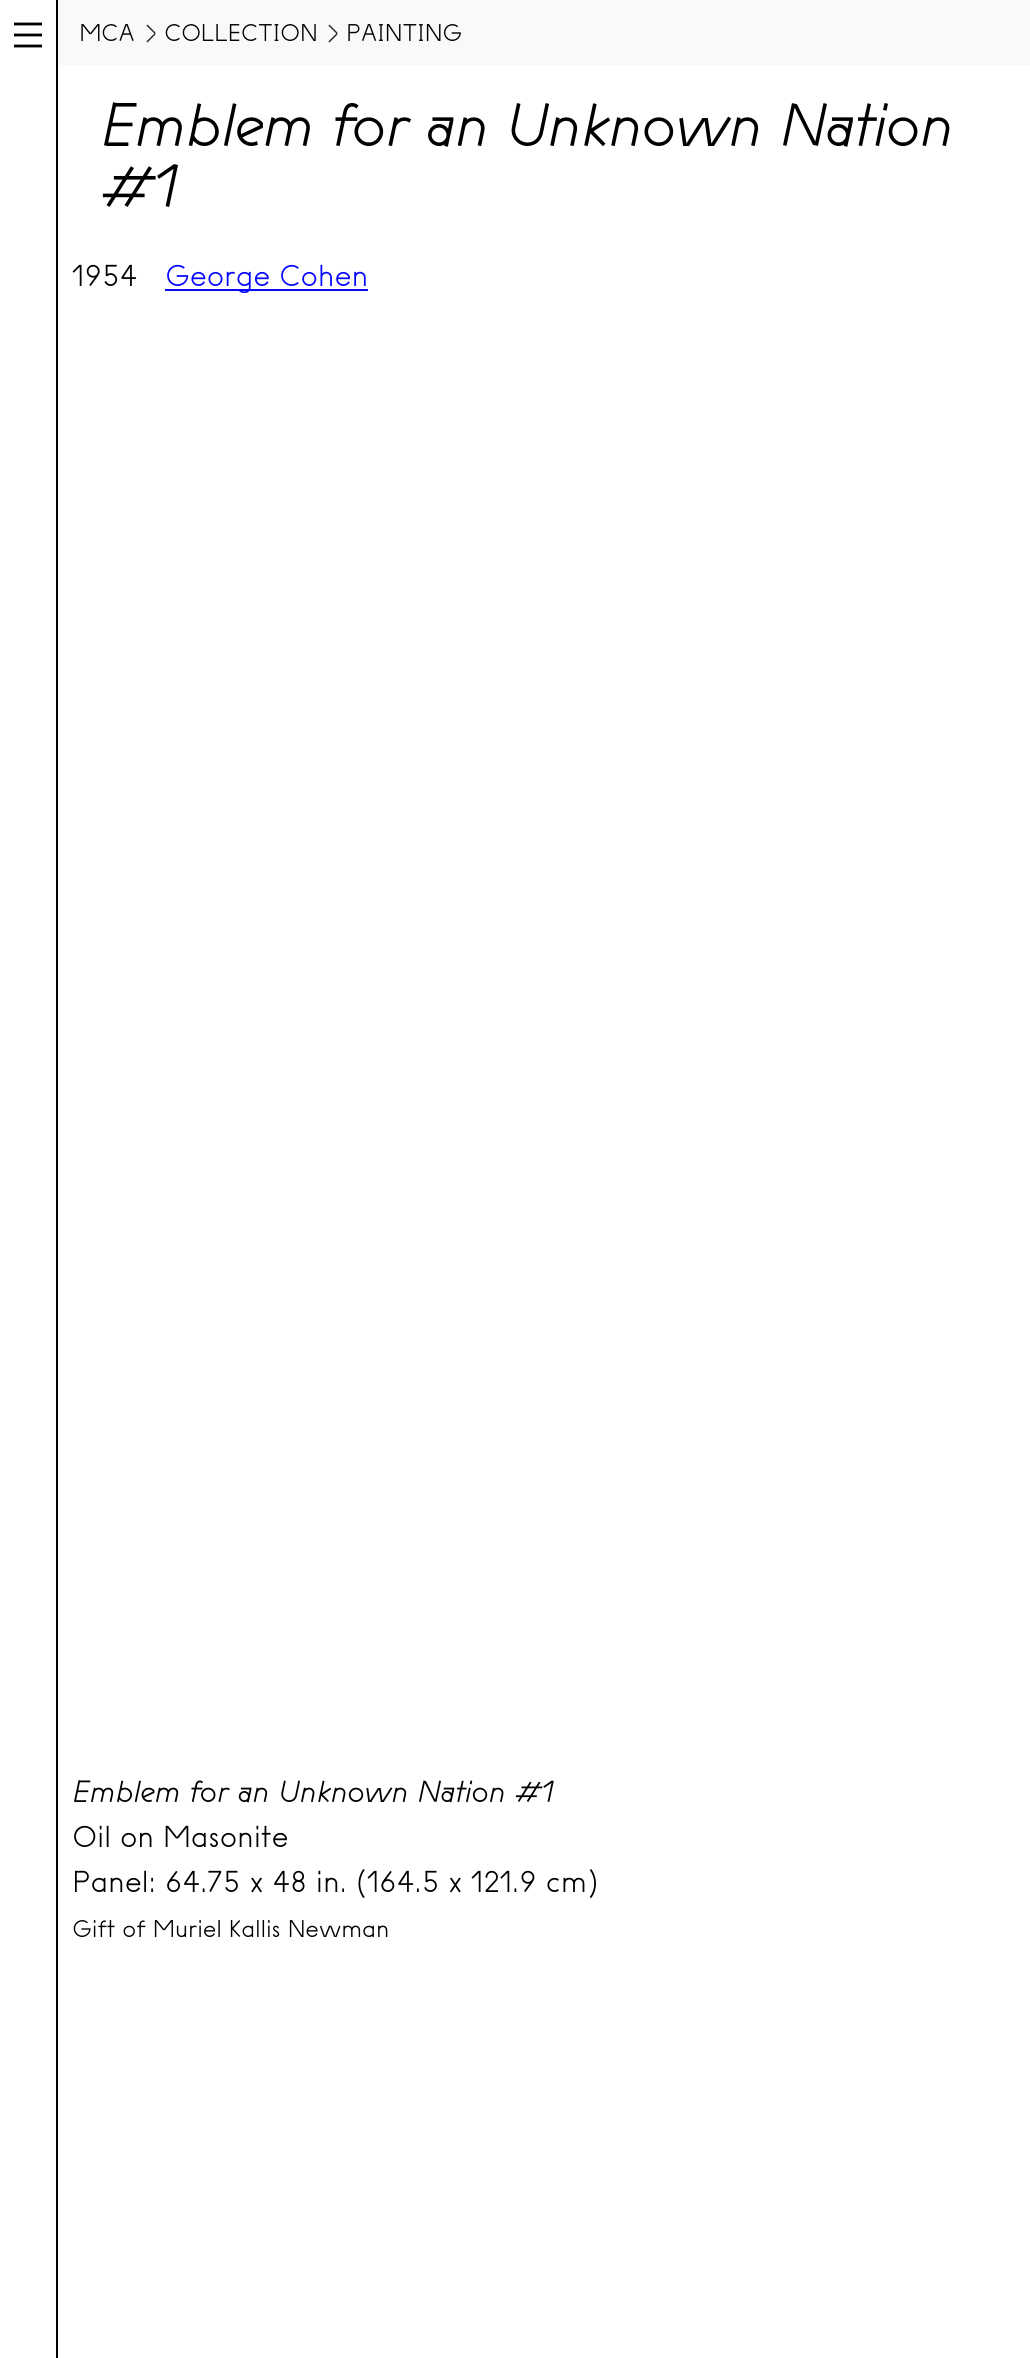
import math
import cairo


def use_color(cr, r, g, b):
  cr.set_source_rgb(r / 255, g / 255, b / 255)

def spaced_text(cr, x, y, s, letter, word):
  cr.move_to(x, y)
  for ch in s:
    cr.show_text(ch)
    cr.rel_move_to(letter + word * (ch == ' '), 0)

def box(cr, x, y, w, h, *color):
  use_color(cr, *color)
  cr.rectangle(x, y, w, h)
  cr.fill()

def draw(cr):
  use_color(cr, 255, 255, 255)
  cr.paint()
  box(cr, 56, 0, 2, 2358, 0, 0, 0)
  cr.new_path()
  cr.move_to(14, 24)
  cr.line_to(42, 24)
  cr.move_to(14, 35)
  cr.line_to(42, 35)
  cr.move_to(14, 46)
  cr.line_to(42, 46)
  cr.set_line_width(2.8)
  cr.stroke()
  box(cr, 58, 0, 972, 65, 249, 249, 249)
  box(cr, 165, 289, 203, 2, 8, 8, 255)
  cr.select_font_face("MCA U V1")
  cr.set_font_size(22.4)
  use_color(cr, 0, 0, 0)
  spaced_text(cr, 79, 41, "MCA", -0.7, 0)
  use_color(cr, 37, 37, 37)
  spaced_text(cr, 144, 42, ">", -0.7, 0)
  use_color(cr, 0, 0, 0)
  spaced_text(cr, 164, 41, "COLLECTION", -0.7, 0)
  use_color(cr, 37, 37, 37)
  spaced_text(cr, 326, 42, ">", -0.7, 0)
  use_color(cr, 0, 0, 0)
  spaced_text(cr, 346, 41, "PAINTING", -0.7, 0)
  cr.select_font_face("MCA U V1 Medium", cairo.FONT_SLANT_ITALIC)
  cr.set_font_size(56)
  spaced_text(cr, 100, 146, "Emblem for an Unknown Nation", -1.9, 0)
  spaced_text(cr, 100, 207, "#1", -1.9, 0)
  cr.select_font_face("MCA U V1")
  cr.set_font_size(28)
  spaced_text(cr, 72, 286, "1954", -0.7, 0)
  use_color(cr, 8, 8, 255)
  spaced_text(cr, 165, 286, "George Cohen", -0.7, 0)
  cr.select_font_face("MCA U V1 Medium", cairo.FONT_SLANT_ITALIC)
  use_color(cr, 0, 0, 0)
  spaced_text(cr, 72, 1802, "Emblem for an Unknown Nation #1", -0.7, 0)
  cr.select_font_face("MCA U V1")
  spaced_text(cr, 72, 1847, "Oil on Masonite", -0.7, 0)
  spaced_text(cr, 72, 1892, "Panel: 64.75 x 48 in. (164.5 x 121.9 cm)", -0.7, 0)
  cr.set_font_size(22.4)
  spaced_text(cr, 72, 1937, "Gift of Muriel Kallis Newman", -0.7, 0)


surface = cairo.ImageSurface(cairo.FORMAT_RGB24, 1030, 2358)
cr = cairo.Context(surface)
options = cairo.FontOptions()
options.set_hint_metrics(cairo.HINT_METRICS_OFF)
options.set_hint_style(cairo.HINT_STYLE_NONE)
cr.set_font_options(options)
cr.set_miter_limit(4)
draw(cr)
surface.write_to_png("out.png")
